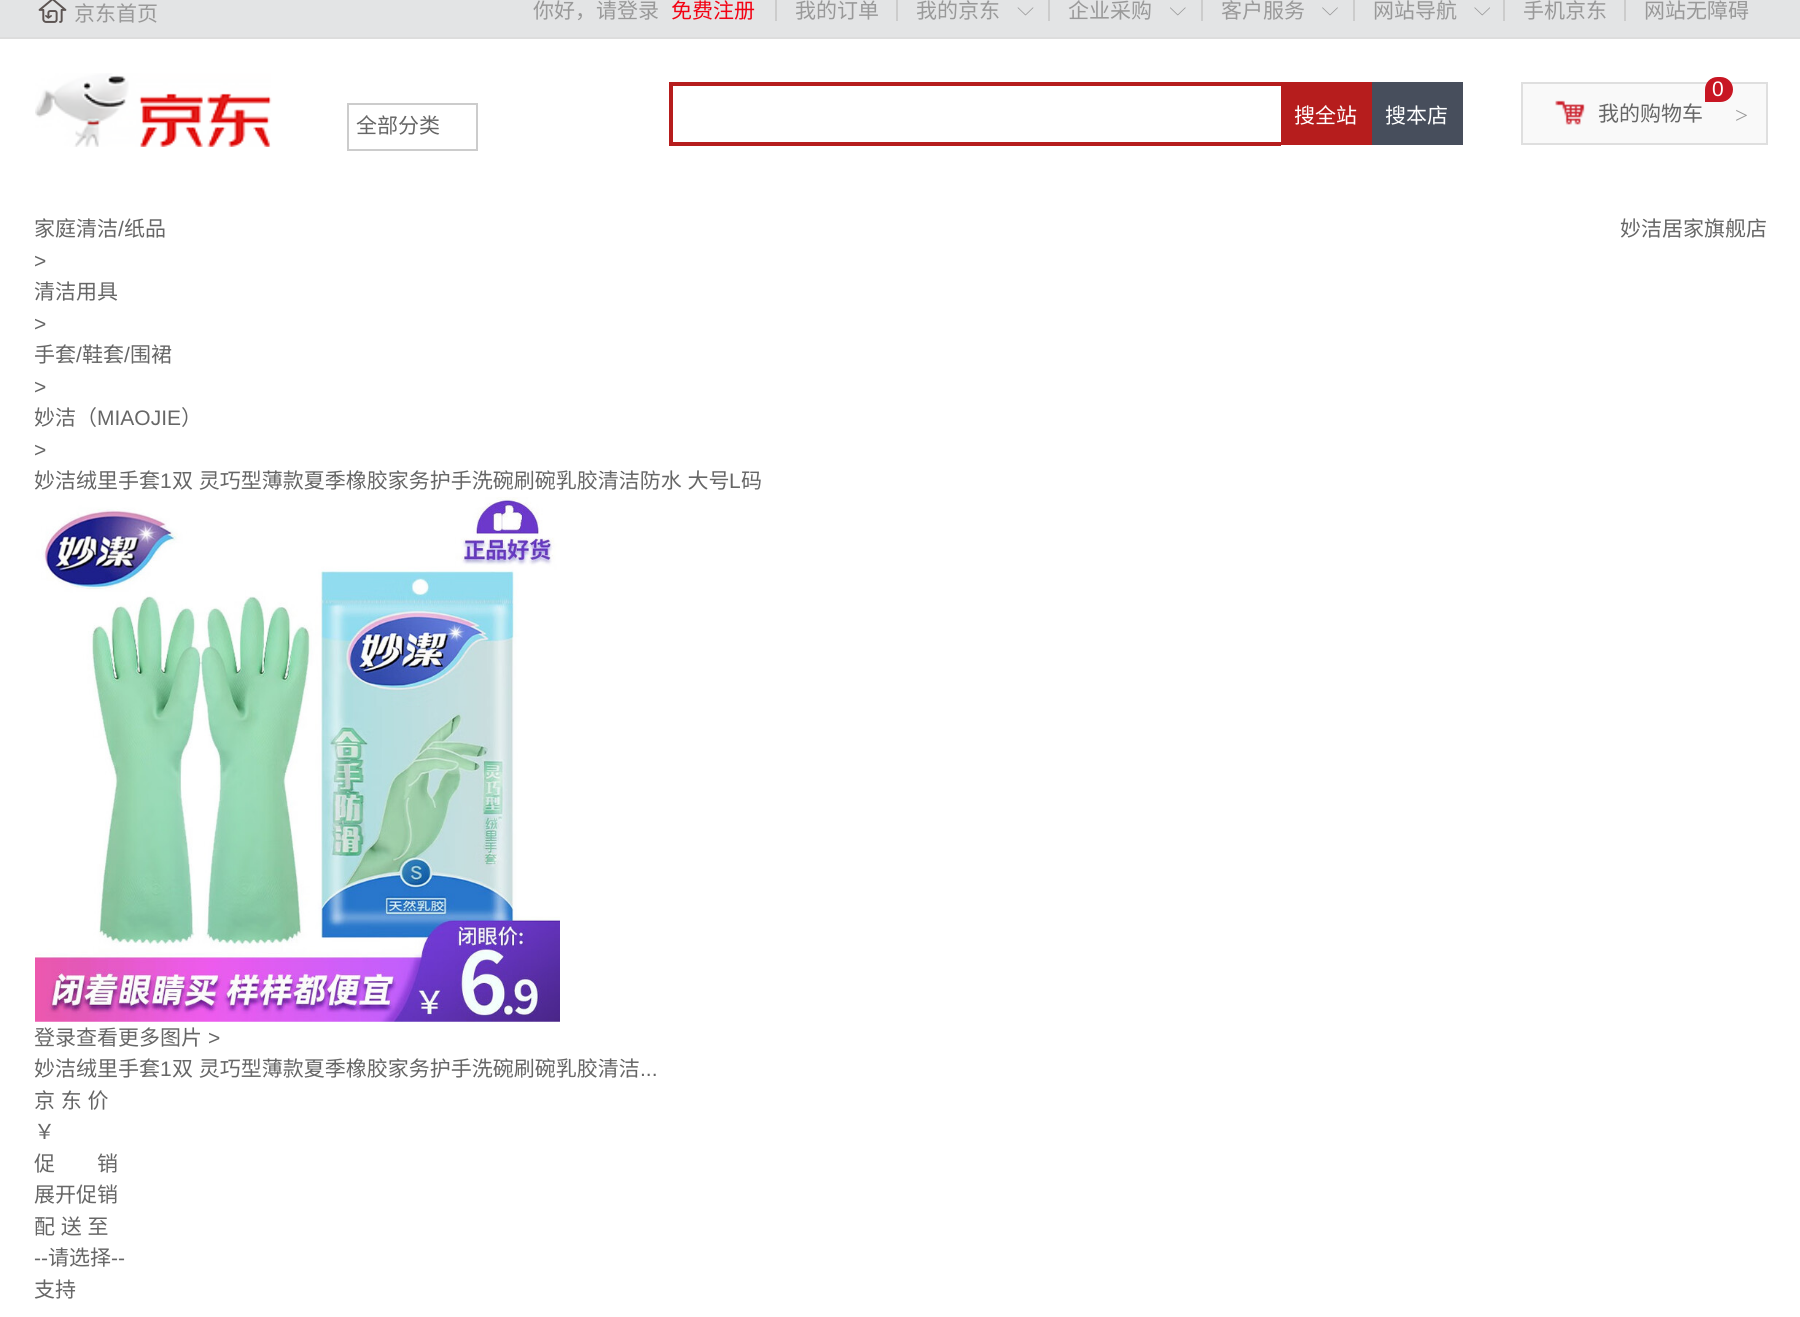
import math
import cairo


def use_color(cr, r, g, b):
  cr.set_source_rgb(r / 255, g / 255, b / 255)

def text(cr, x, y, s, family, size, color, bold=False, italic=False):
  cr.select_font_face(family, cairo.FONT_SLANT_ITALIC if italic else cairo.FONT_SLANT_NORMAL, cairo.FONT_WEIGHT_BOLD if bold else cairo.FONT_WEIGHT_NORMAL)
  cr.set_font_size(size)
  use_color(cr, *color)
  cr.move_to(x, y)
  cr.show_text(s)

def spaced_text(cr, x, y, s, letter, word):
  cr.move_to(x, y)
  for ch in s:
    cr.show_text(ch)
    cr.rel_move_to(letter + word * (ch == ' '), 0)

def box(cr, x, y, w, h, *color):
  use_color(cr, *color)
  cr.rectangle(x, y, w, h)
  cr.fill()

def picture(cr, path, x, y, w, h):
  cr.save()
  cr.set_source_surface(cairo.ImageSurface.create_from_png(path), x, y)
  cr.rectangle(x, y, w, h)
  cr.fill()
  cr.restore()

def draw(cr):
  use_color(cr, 255, 255, 255)
  cr.paint()
  box(cr, 0, 0, 1800, 37, 227, 228, 229)
  box(cr, 0, 37, 1800, 2, 221, 221, 221)
  picture(cr, "img_01.png", 38, 0, 29, 23)
  box(cr, 775, 0, 2, 21, 204, 204, 204)
  box(cr, 896, 0, 2, 21, 204, 204, 204)
  picture(cr, "img_02.png", 1017, 7, 17, 9)
  box(cr, 1048, 0, 2, 21, 204, 204, 204)
  picture(cr, "img_03.png", 1170, 7, 16, 9)
  box(cr, 1201, 0, 2, 21, 204, 204, 204)
  picture(cr, "img_04.png", 1322, 7, 16, 9)
  box(cr, 1353, 0, 2, 21, 204, 204, 204)
  picture(cr, "img_05.png", 1474, 7, 16, 9)
  box(cr, 1503, 0, 2, 21, 204, 204, 204)
  box(cr, 1624, 0, 2, 21, 204, 204, 204)
  picture(cr, "img_06.png", 35, 73, 237, 74)
  cr.rectangle(348, 104, 129, 46)
  cr.stroke()
  box(cr, 669, 82, 612, 4, 182, 29, 29)
  box(cr, 669, 142, 612, 4, 182, 29, 29)
  box(cr, 669, 82, 4, 63, 182, 29, 29)
  box(cr, 1281, 82, 91, 63, 182, 29, 29)
  box(cr, 1372, 82, 91, 63, 71, 78, 92)
  use_color(cr, 249, 249, 249)
  cr.rectangle(1522, 83, 245, 61)
  cr.fill_preserve()
  use_color(cr, 223, 223, 223)
  cr.stroke()
  use_color(cr, 200, 22, 35)
  cr.new_path()
  cr.move_to(1717.5, 77)
  cr.line_to(1720.5, 77)
  cr.curve_to(1727.5, 77, 1733, 82.5, 1733, 89.5)
  cr.curve_to(1733, 96.5, 1727.5, 102, 1720.5, 102)
  cr.line_to(1705, 102)
  cr.line_to(1705, 89.5)
  cr.curve_to(1705, 82.5, 1710.5, 77, 1717.5, 77)
  cr.close_path()
  cr.fill()
  picture(cr, "img_07.png", 1555, 100, 30, 25)
  picture(cr, "img_08.png", 35, 497, 525, 525)
  text(cr, 74, 21, "京东首页", "Noto Sans CJK SC", 21, (153, 153, 153))
  text(cr, 533, 18, "你好，请登录", "Noto Sans CJK SC", 21, (153, 153, 153))
  text(cr, 671, 18, "免费注册", "Noto Sans CJK SC", 21, (243, 2, 19))
  text(cr, 795, 18, "我的订单", "Noto Sans CJK SC", 21, (153, 153, 153))
  text(cr, 916, 18, "我的京东", "Noto Sans CJK SC", 21, (153, 153, 153))
  text(cr, 1068, 18, "企业采购", "Noto Sans CJK SC", 21, (153, 153, 153))
  text(cr, 1221, 18, "客户服务", "Noto Sans CJK SC", 21, (153, 153, 153))
  text(cr, 1373, 18, "网站导航", "Noto Sans CJK SC", 21, (153, 153, 153))
  text(cr, 1523, 18, "手机京东", "Noto Sans CJK SC", 21, (153, 153, 153))
  text(cr, 1644, 18, "网站无障碍", "Noto Sans CJK SC", 21, (153, 153, 153))
  text(cr, 356, 133, "全部分类", "Noto Sans CJK SC", 21, (102, 102, 102))
  text(cr, 1294, 123, "搜全站", "Noto Sans CJK SC", 21, (255, 255, 255))
  text(cr, 1385, 123, "搜本店", "Noto Sans CJK SC", 21, (255, 255, 255))
  text(cr, 1712, 96, "0", "Liberation Sans", 21, (255, 255, 255))
  text(cr, 1598, 121, "我的购物车", "Noto Sans CJK SC", 21, (102, 102, 102))
  text(cr, 1735, 123, ">", "Liberation Serif", 23, (153, 153, 153))
  text(cr, 34, 236, "家庭清洁", "Noto Sans CJK SC", 21, (102, 102, 102))
  text(cr, 118, 236, "/", "Liberation Sans", 21, (102, 102, 102))
  text(cr, 124, 236, "纸品", "Noto Sans CJK SC", 21, (102, 102, 102))
  text(cr, 34, 268, ">", "Liberation Sans", 21, (102, 102, 102))
  text(cr, 34, 299, "清洁用具", "Noto Sans CJK SC", 21, (102, 102, 102))
  text(cr, 34, 331, ">", "Liberation Sans", 21, (102, 102, 102))
  text(cr, 34, 362, "手套", "Noto Sans CJK SC", 21, (102, 102, 102))
  text(cr, 76, 362, "/", "Liberation Sans", 21, (102, 102, 102))
  text(cr, 82, 362, "鞋套", "Noto Sans CJK SC", 21, (102, 102, 102))
  text(cr, 124, 362, "/", "Liberation Sans", 21, (102, 102, 102))
  text(cr, 130, 362, "围裙", "Noto Sans CJK SC", 21, (102, 102, 102))
  text(cr, 34, 394, ">", "Liberation Sans", 21, (102, 102, 102))
  text(cr, 34, 425, "妙洁（", "Noto Sans CJK SC", 21, (102, 102, 102))
  text(cr, 97, 425, "MIAOJIE", "Liberation Sans", 21, (102, 102, 102))
  text(cr, 181, 425, "）", "Noto Sans CJK SC", 21, (102, 102, 102))
  text(cr, 34, 457, ">", "Liberation Sans", 21, (102, 102, 102))
  text(cr, 34, 488, "妙洁绒里手套", "Noto Sans CJK SC", 21, (102, 102, 102))
  text(cr, 160, 488, "1", "Liberation Sans", 21, (102, 102, 102))
  cr.select_font_face("Noto Sans CJK SC")
  spaced_text(cr, 172, 488, "双 灵巧型薄款夏季橡胶家务护手洗碗刷碗乳胶清洁防水 大号", 0, 1)
  text(cr, 729, 488, "L", "Liberation Sans", 21, (102, 102, 102))
  text(cr, 741, 488, "码", "Noto Sans CJK SC", 21, (102, 102, 102))
  text(cr, 1620, 236, "妙洁居家旗舰店", "Noto Sans CJK SC", 21, (102, 102, 102))
  text(cr, 34, 1045, "登录查看更多图片", "Noto Sans CJK SC", 21, (102, 102, 102))
  text(cr, 208, 1045, ">", "Liberation Sans", 21, (102, 102, 102))
  text(cr, 34, 1076, "妙洁绒里手套", "Noto Sans CJK SC", 21, (102, 102, 102))
  text(cr, 160, 1076, "1", "Liberation Sans", 21, (102, 102, 102))
  cr.select_font_face("Noto Sans CJK SC")
  spaced_text(cr, 172, 1076, "双 灵巧型薄款夏季橡胶家务护手洗碗刷碗乳胶清洁", 0, 1)
  text(cr, 640, 1076, "...", "Liberation Sans", 21, (102, 102, 102))
  cr.select_font_face("Noto Sans CJK SC")
  spaced_text(cr, 34, 1108, "京 东 价", 0, 1)
  text(cr, 34, 1139, "￥", "Noto Sans CJK SC", 21, (102, 102, 102))
  text(cr, 34, 1171, "促　　销", "Noto Sans CJK SC", 21, (102, 102, 102))
  text(cr, 34, 1202, "展开促销", "Noto Sans CJK SC", 21, (102, 102, 102))
  spaced_text(cr, 34, 1234, "配 送 至", 0, 1)
  text(cr, 34, 1265, "--", "Liberation Sans", 21, (102, 102, 102))
  text(cr, 48, 1265, "请选择", "Noto Sans CJK SC", 21, (102, 102, 102))
  text(cr, 111, 1265, "--", "Liberation Sans", 21, (102, 102, 102))
  text(cr, 34, 1297, "支持", "Noto Sans CJK SC", 21, (102, 102, 102))


surface = cairo.ImageSurface(cairo.FORMAT_RGB24, 1800, 1317)
cr = cairo.Context(surface)
options = cairo.FontOptions()
options.set_hint_metrics(cairo.HINT_METRICS_OFF)
options.set_hint_style(cairo.HINT_STYLE_NONE)
cr.set_font_options(options)
cr.set_miter_limit(4)
draw(cr)
surface.write_to_png("out.png")
